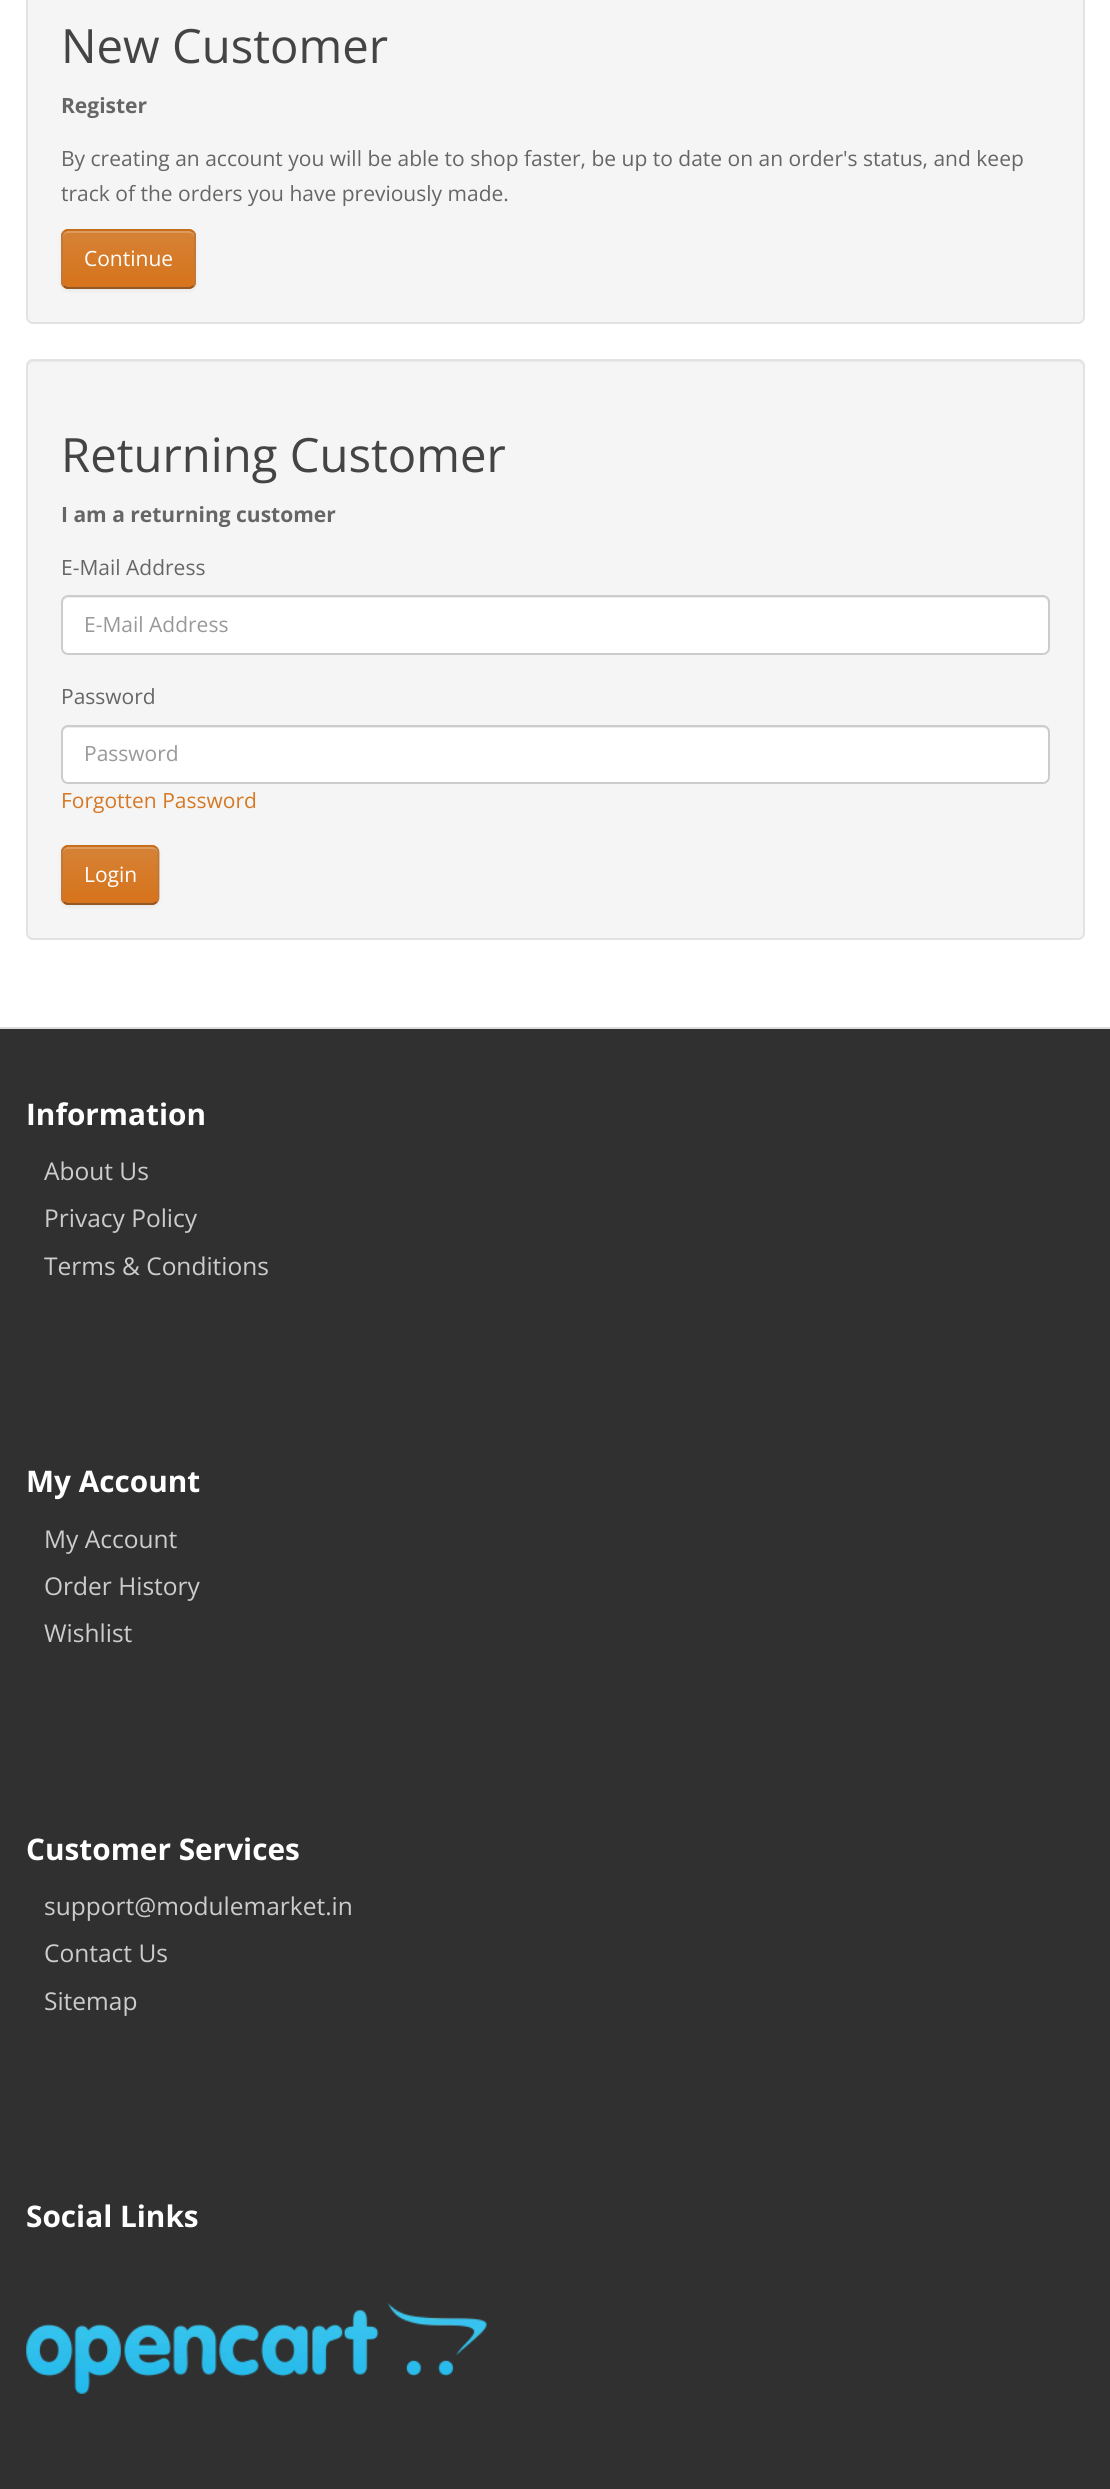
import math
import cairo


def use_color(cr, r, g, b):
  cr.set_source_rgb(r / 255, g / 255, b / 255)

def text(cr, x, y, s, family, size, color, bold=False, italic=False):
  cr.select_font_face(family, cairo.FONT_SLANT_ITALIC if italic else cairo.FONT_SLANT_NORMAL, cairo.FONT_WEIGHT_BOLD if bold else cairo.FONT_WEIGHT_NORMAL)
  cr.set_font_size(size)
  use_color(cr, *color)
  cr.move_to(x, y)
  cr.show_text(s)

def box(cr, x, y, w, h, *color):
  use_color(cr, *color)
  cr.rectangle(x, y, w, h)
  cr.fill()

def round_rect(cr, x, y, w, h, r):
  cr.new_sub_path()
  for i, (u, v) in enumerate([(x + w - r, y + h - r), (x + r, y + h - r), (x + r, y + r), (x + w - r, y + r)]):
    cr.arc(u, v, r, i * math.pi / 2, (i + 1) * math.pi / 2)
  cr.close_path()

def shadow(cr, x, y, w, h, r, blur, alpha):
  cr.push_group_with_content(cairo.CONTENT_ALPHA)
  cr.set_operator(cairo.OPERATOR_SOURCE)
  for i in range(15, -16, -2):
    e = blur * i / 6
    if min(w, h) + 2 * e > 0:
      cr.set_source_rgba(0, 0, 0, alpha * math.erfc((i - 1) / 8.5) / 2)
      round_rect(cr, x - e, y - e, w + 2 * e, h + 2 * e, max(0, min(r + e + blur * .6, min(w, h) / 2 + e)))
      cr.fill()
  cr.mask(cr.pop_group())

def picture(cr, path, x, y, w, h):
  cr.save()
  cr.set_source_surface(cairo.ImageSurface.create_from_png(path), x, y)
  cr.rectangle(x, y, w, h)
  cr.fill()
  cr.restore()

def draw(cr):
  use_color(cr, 255, 255, 255)
  cr.paint()
  use_color(cr, 245, 245, 245)
  round_rect(cr, 27, -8, 1057, 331, 6)
  cr.fill_preserve()
  use_color(cr, 227, 227, 227)
  cr.stroke()
  use_color(cr, 0, 0, 0)
  shadow(cr, 61, 231, 135, 60, 7, 2, 0.05)
  use_color(cr, 206, 111, 29)
  round_rect(cr, 61, 229, 135, 60, 7)
  cr.fill()
  cr.save()
  round_rect(cr, 61, 229, 135, 60, 7)
  cr.clip()
  gradient = cairo.LinearGradient(129, 231, 129, 287)
  gradient.add_color_stop_rgba(0, 0.835, 0.51, 0.212, 1)
  gradient.add_color_stop_rgba(1, 0.843, 0.451, 0.106, 1)
  cr.set_source(gradient)
  cr.rectangle(61, 231, 135, 56)
  cr.fill()
  cr.restore()
  use_color(cr, 221, 155, 94)
  cr.new_path()
  cr.move_to(68, 233)
  cr.line_to(189, 233)
  cr.curve_to(192, 233, 194, 235, 194, 238)
  cr.line_to(194, 236)
  cr.curve_to(194, 233, 192, 231, 189, 231)
  cr.line_to(68, 231)
  cr.curve_to(65, 231, 63, 233, 63, 236)
  cr.line_to(63, 238)
  cr.curve_to(63, 235, 65, 233, 68, 233)
  cr.close_path()
  cr.fill()
  cr.new_path()
  cr.move_to(64, 232)
  cr.curve_to(65, 231, 66.5, 230, 68, 230)
  cr.line_to(189, 230)
  cr.curve_to(190.5, 230, 192, 231, 193.5, 232)
  use_color(cr, 200, 109, 28)
  cr.set_line_width(1.8)
  cr.stroke()
  cr.new_path()
  cr.move_to(193.5, 232)
  cr.curve_to(194.5, 233, 195, 234.5, 195, 236)
  cr.line_to(195, 282)
  cr.curve_to(195, 283.5, 194.5, 285, 193.5, 286)
  use_color(cr, 190, 120, 58)
  cr.stroke()
  cr.new_path()
  cr.move_to(193.5, 286)
  cr.curve_to(192, 287, 190.5, 288, 189, 288)
  cr.line_to(68, 288)
  cr.curve_to(66.5, 288, 65, 287, 64, 286)
  use_color(cr, 139, 85, 39)
  cr.stroke()
  cr.new_path()
  cr.move_to(64, 286)
  cr.curve_to(63, 285, 62, 283.5, 62, 282)
  cr.line_to(62, 236)
  cr.curve_to(62, 234.5, 63, 233, 64, 232)
  use_color(cr, 190, 120, 58)
  cr.stroke()
  use_color(cr, 245, 245, 245)
  round_rect(cr, 26, 359, 1059, 581, 7)
  cr.fill()
  use_color(cr, 233, 233, 233)
  cr.new_path()
  cr.move_to(33, 362)
  cr.line_to(1078, 362)
  cr.curve_to(1081, 362, 1083, 365, 1083, 368)
  cr.line_to(1083, 366)
  cr.curve_to(1083, 363, 1081, 361, 1078, 361)
  cr.line_to(33, 361)
  cr.curve_to(30, 361, 28, 363, 28, 366)
  cr.line_to(28, 368)
  cr.curve_to(28, 365, 30, 362, 33, 362)
  cr.close_path()
  cr.fill()
  round_rect(cr, 27, 360, 1057, 579, 6)
  use_color(cr, 227, 227, 227)
  cr.set_line_width(2)
  cr.stroke()
  use_color(cr, 255, 255, 255)
  round_rect(cr, 61, 595, 989, 60, 7)
  cr.fill()
  use_color(cr, 236, 236, 236)
  cr.new_path()
  cr.move_to(68, 598)
  cr.line_to(1043, 598)
  cr.curve_to(1046, 598, 1048, 601, 1048, 604)
  cr.line_to(1048, 602)
  cr.curve_to(1048, 599, 1046, 597, 1043, 597)
  cr.line_to(68, 597)
  cr.curve_to(65, 597, 63, 599, 63, 602)
  cr.line_to(63, 604)
  cr.curve_to(63, 601, 65, 598, 68, 598)
  cr.close_path()
  cr.fill()
  round_rect(cr, 62, 596, 987, 58, 6)
  use_color(cr, 204, 204, 204)
  cr.stroke()
  use_color(cr, 255, 255, 255)
  round_rect(cr, 61, 725, 989, 59, 7)
  cr.fill()
  use_color(cr, 236, 236, 236)
  cr.new_path()
  cr.move_to(68, 728)
  cr.line_to(1043, 728)
  cr.curve_to(1046, 728, 1048, 730, 1048, 733)
  cr.line_to(1048, 731)
  cr.curve_to(1048, 728, 1046, 726, 1043, 726)
  cr.line_to(68, 726)
  cr.curve_to(65, 726, 63, 728, 63, 731)
  cr.line_to(63, 733)
  cr.curve_to(63, 730, 65, 728, 68, 728)
  cr.close_path()
  cr.fill()
  round_rect(cr, 62, 726, 987, 57, 6)
  use_color(cr, 204, 204, 204)
  cr.stroke()
  use_color(cr, 0, 0, 0)
  shadow(cr, 61, 847, 98, 60, 7, 2, 0.05)
  use_color(cr, 206, 111, 29)
  round_rect(cr, 61, 845, 98, 60, 7)
  cr.fill()
  cr.save()
  round_rect(cr, 61, 845, 98, 60, 7)
  cr.clip()
  gradient = cairo.LinearGradient(110, 847, 110, 903)
  gradient.add_color_stop_rgba(0, 0.835, 0.51, 0.212, 1)
  gradient.add_color_stop_rgba(1, 0.843, 0.451, 0.106, 1)
  cr.set_source(gradient)
  cr.rectangle(61, 847, 98, 56)
  cr.fill()
  cr.restore()
  cr.set_source_rgba(1, 1, 1, 0.2)
  cr.new_path()
  cr.move_to(68, 849)
  cr.line_to(152, 849)
  cr.curve_to(155, 849, 158, 851, 158, 854)
  cr.curve_to(158, 843, 147, 847, 139, 847)
  cr.line_to(82, 847)
  cr.curve_to(74, 847, 63, 843, 63, 854)
  cr.curve_to(63, 851, 65, 849, 68, 849)
  cr.close_path()
  cr.fill()
  cr.new_path()
  cr.move_to(64, 848)
  cr.curve_to(65, 847, 66.5, 846, 68, 846)
  cr.line_to(152, 846)
  cr.curve_to(154, 846, 155.5, 847, 156.5, 848)
  use_color(cr, 200, 109, 28)
  cr.set_line_width(1.8)
  cr.stroke()
  cr.new_path()
  cr.move_to(156.5, 848)
  cr.curve_to(157.5, 849, 158.5, 850.5, 158.5, 852)
  cr.line_to(158.5, 898)
  cr.curve_to(158.5, 899.5, 157.5, 901, 156.5, 902)
  use_color(cr, 190, 120, 58)
  cr.stroke()
  cr.new_path()
  cr.move_to(156.5, 902)
  cr.curve_to(155.5, 903, 154, 904, 152, 904)
  cr.line_to(68, 904)
  cr.curve_to(66.5, 904, 65, 903, 64, 902)
  use_color(cr, 139, 85, 39)
  cr.stroke()
  cr.new_path()
  cr.move_to(64, 902)
  cr.curve_to(63, 901, 62, 899.5, 62, 898)
  cr.line_to(62, 852)
  cr.curve_to(62, 850.5, 63, 849, 64, 848)
  use_color(cr, 190, 120, 58)
  cr.stroke()
  box(cr, 0, 1029, 1110, 1460, 48, 48, 48)
  box(cr, 0, 1027, 1110, 2, 221, 221, 221)
  picture(cr, "img_01.png", 26, 2303, 461, 91)
  text(cr, 61, 63, "New Customer", "Open Sans", 47.25, (68, 68, 68))
  text(cr, 61, 113, "Register", "Open Sans", 21, (102, 102, 102), bold=True)
  text(cr, 61, 166, "By creating an account you will be able to shop faster, be up to date on an order's status, and keep", "Open Sans", 21, (102, 102, 102))
  text(cr, 61, 201, "track of the orders you have previously made.", "Open Sans", 21, (102, 102, 102))
  text(cr, 84, 266, "Continue", "Open Sans", 21, (255, 255, 255))
  text(cr, 61, 472, "Returning Customer", "Open Sans", 47.25, (68, 68, 68))
  text(cr, 61, 522, "I am a returning customer", "Open Sans", 21, (102, 102, 102), bold=True)
  text(cr, 61, 575, "E-Mail Address", "Open Sans", 21, (102, 102, 102))
  text(cr, 84, 632, "E-Mail Address", "Open Sans", 21, (153, 153, 153))
  text(cr, 61, 704, "Password", "Open Sans", 21, (102, 102, 102))
  text(cr, 84, 761, "Password", "Open Sans", 21, (153, 153, 153))
  text(cr, 61, 808, "Forgotten Password", "Open Sans", 21, (214, 120, 36))
  text(cr, 84, 882, "Login", "Open Sans", 21, (255, 255, 255))
  text(cr, 26, 1125, "Information", "Open Sans", 29.75, (255, 255, 255), bold=True)
  text(cr, 44, 1180, "About Us", "Open Sans", 24.5, (204, 204, 204))
  text(cr, 44, 1227, "Privacy Policy", "Open Sans", 24.5, (204, 204, 204))
  text(cr, 44, 1275, "Terms & Conditions", "Open Sans", 24.5, (204, 204, 204))
  text(cr, 26, 1492, "My Account", "Open Sans", 29.75, (255, 255, 255), bold=True)
  text(cr, 44, 1548, "My Account", "Open Sans", 24.5, (204, 204, 204))
  text(cr, 44, 1595, "Order History", "Open Sans", 24.5, (204, 204, 204))
  text(cr, 44, 1642, "Wishlist", "Open Sans", 24.5, (204, 204, 204))
  text(cr, 26, 1860, "Customer Services", "Open Sans", 29.75, (255, 255, 255), bold=True)
  text(cr, 44, 1915, "support@modulemarket.in", "Open Sans", 24.5, (204, 204, 204))
  text(cr, 44, 1962, "Contact Us", "Open Sans", 24.5, (204, 204, 204))
  text(cr, 44, 2010, "Sitemap", "Open Sans", 24.5, (204, 204, 204))
  text(cr, 26, 2227, "Social Links", "Open Sans", 29.75, (255, 255, 255), bold=True)


surface = cairo.ImageSurface(cairo.FORMAT_RGB24, 1110, 2489)
cr = cairo.Context(surface)
options = cairo.FontOptions()
options.set_hint_metrics(cairo.HINT_METRICS_OFF)
options.set_hint_style(cairo.HINT_STYLE_NONE)
cr.set_font_options(options)
cr.set_miter_limit(4)
draw(cr)
surface.write_to_png("out.png")
